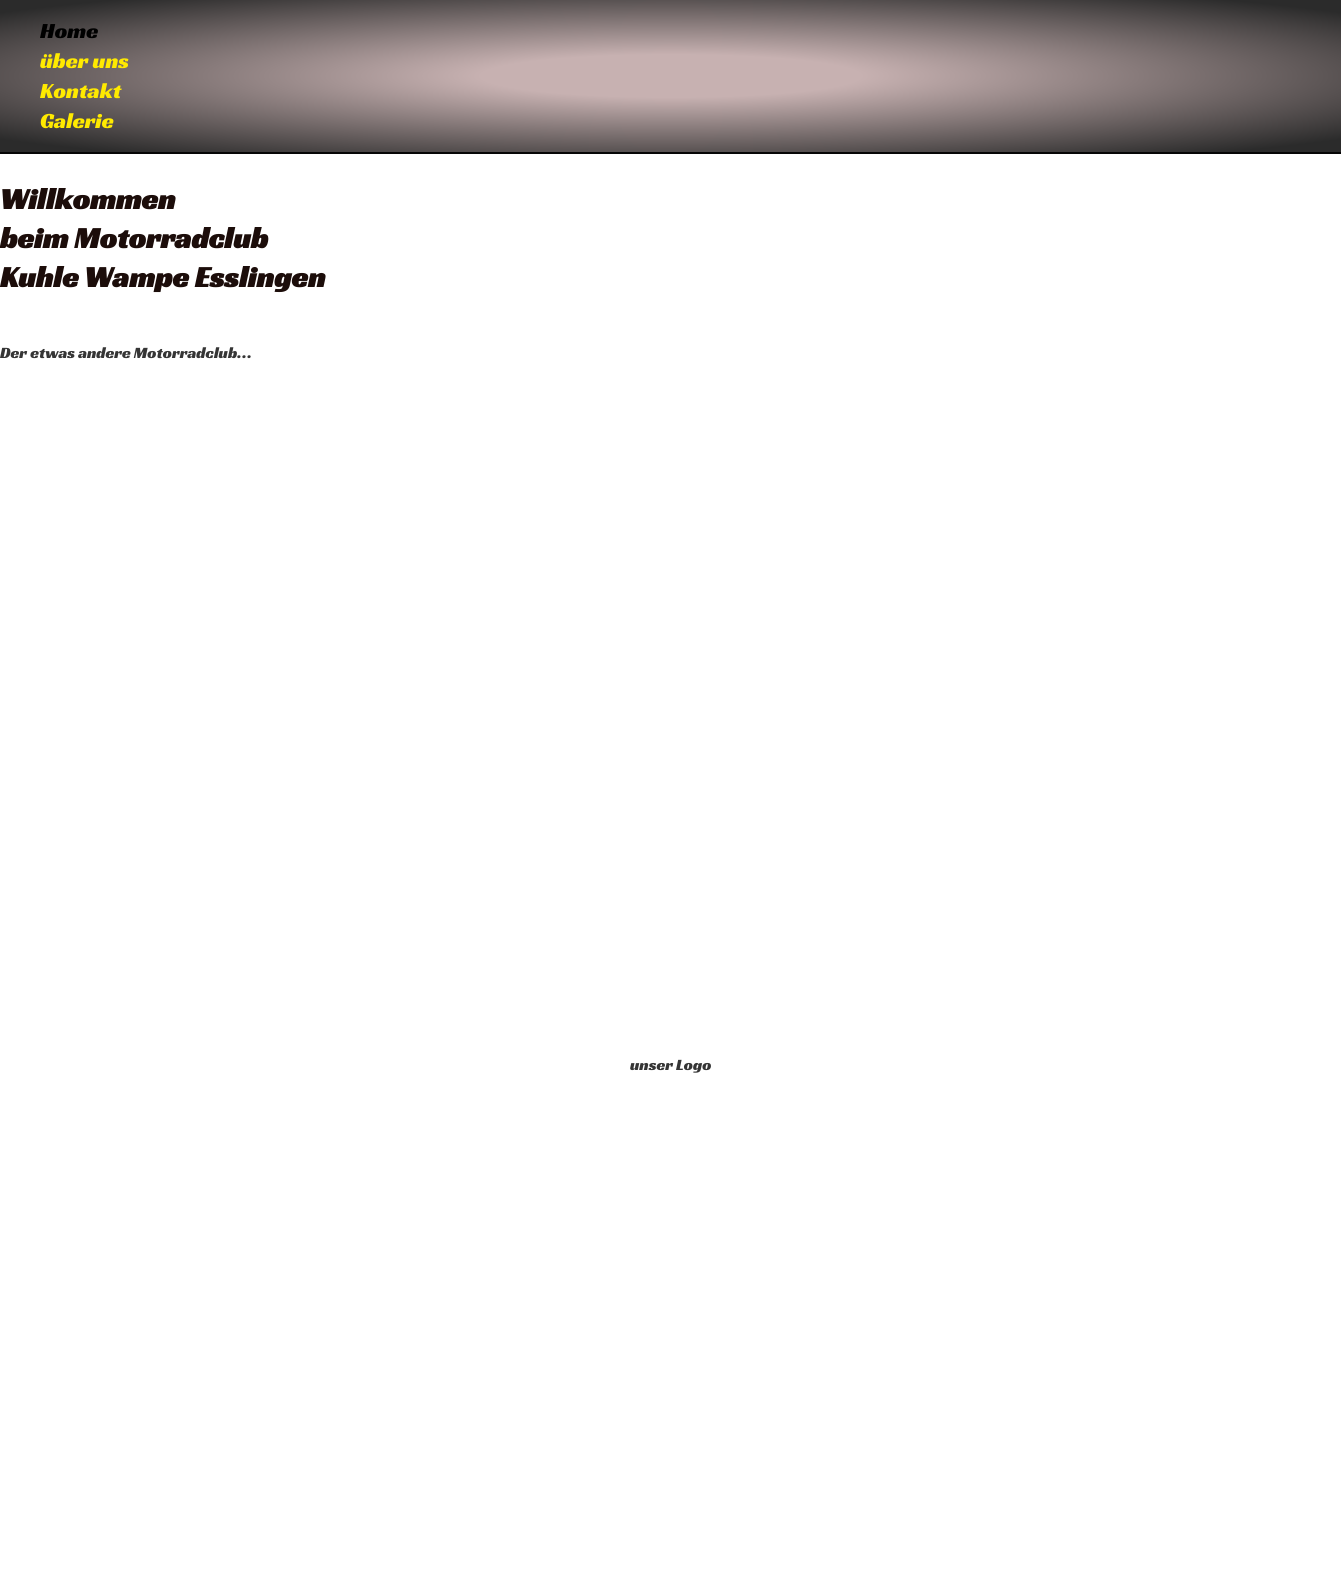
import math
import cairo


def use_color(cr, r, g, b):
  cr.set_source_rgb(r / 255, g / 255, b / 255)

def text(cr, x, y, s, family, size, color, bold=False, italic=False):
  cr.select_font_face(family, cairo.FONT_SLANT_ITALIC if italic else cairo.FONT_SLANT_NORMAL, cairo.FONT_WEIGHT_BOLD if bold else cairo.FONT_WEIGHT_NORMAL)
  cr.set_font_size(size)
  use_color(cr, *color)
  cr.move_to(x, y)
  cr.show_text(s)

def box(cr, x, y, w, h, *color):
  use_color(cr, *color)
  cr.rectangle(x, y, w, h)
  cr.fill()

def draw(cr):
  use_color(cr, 255, 255, 255)
  cr.paint()
  gradient = cairo.RadialGradient(0, 0, 0, 0, 0, 1)
  gradient.set_matrix(cairo.Matrix(1 / 948, 0, 0, 1 / 107, -1 * 671 / 948, -1 * 76 / 107))
  gradient.add_color_stop_rgba(0.2, 0.78, 0.694, 0.694, 1)
  gradient.add_color_stop_rgba(0.92, 0.169, 0.169, 0.169, 1)
  cr.set_source(gradient)
  cr.rectangle(0, 0, 1341, 152)
  cr.fill()
  box(cr, 0, 152, 1341, 2, 6, 6, 6)
  text(cr, 40, 38, "Home", "Racing Sans One", 22, (0, 0, 0))
  text(cr, 40, 68, "über uns", "Racing Sans One", 22, (255, 234, 0))
  text(cr, 40, 98, "Kontakt", "Racing Sans One", 22, (255, 234, 0))
  text(cr, 40, 128, "Galerie", "Racing Sans One", 22, (255, 234, 0))
  text(cr, 0, 209, "Willkommen", "Racing Sans One", 30, (28, 13, 10), bold=True)
  text(cr, 0, 248, "beim Motorradclub", "Racing Sans One", 30, (28, 13, 10), bold=True)
  text(cr, 0, 287, "Kuhle Wampe Esslingen", "Racing Sans One", 30, (28, 13, 10), bold=True)
  text(cr, 0, 358, "Der etwas andere Motorradclub…", "Racing Sans One", 16, (53, 53, 53))
  text(cr, 630, 1070, "unser Logo", "Racing Sans One", 16, (53, 53, 53))


surface = cairo.ImageSurface(cairo.FORMAT_RGB24, 1341, 1571)
cr = cairo.Context(surface)
options = cairo.FontOptions()
options.set_hint_metrics(cairo.HINT_METRICS_OFF)
options.set_hint_style(cairo.HINT_STYLE_NONE)
cr.set_font_options(options)
cr.set_miter_limit(4)
draw(cr)
surface.write_to_png("out.png")
